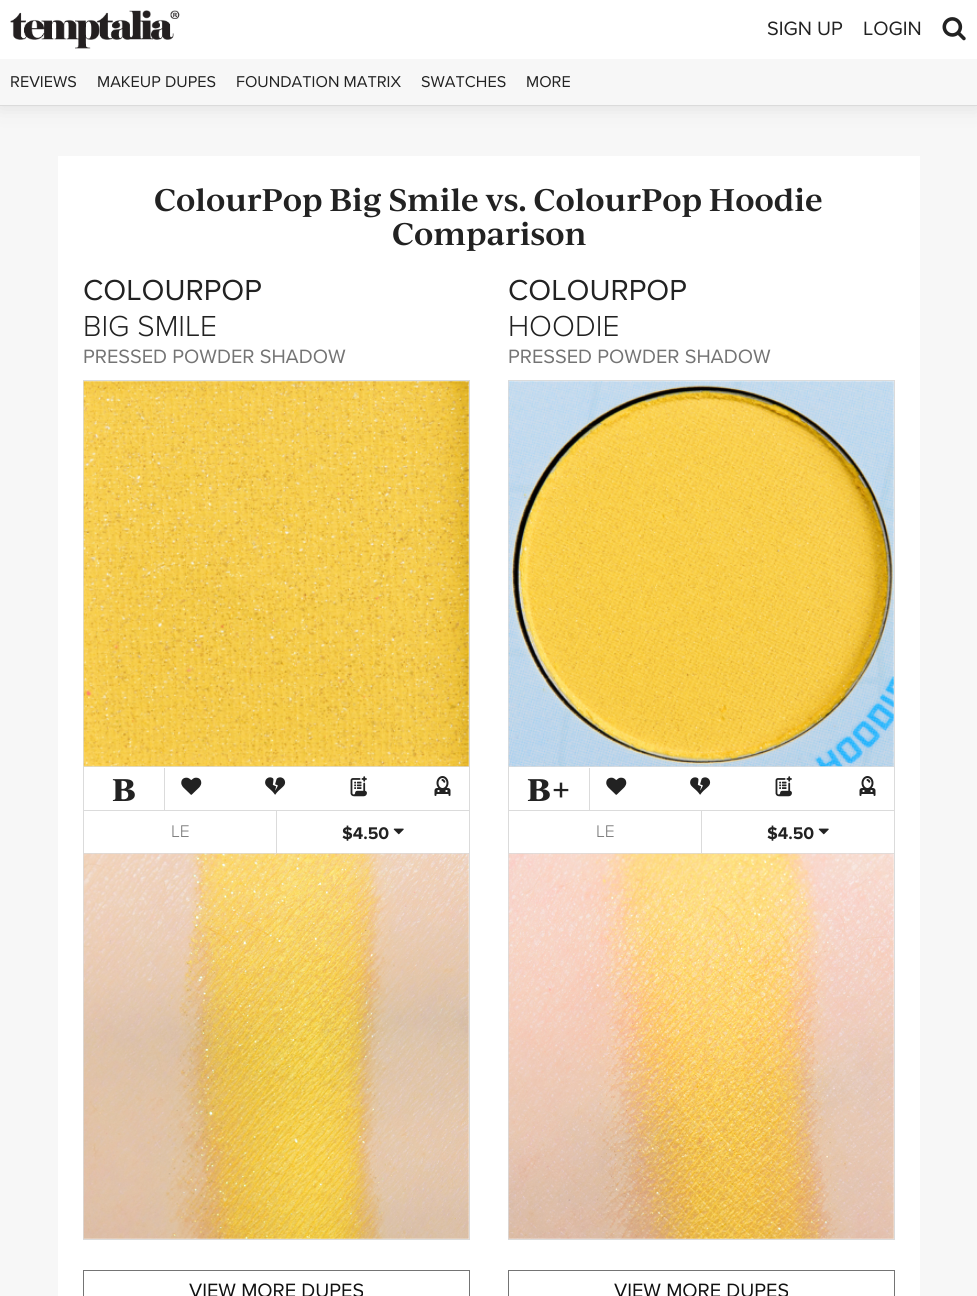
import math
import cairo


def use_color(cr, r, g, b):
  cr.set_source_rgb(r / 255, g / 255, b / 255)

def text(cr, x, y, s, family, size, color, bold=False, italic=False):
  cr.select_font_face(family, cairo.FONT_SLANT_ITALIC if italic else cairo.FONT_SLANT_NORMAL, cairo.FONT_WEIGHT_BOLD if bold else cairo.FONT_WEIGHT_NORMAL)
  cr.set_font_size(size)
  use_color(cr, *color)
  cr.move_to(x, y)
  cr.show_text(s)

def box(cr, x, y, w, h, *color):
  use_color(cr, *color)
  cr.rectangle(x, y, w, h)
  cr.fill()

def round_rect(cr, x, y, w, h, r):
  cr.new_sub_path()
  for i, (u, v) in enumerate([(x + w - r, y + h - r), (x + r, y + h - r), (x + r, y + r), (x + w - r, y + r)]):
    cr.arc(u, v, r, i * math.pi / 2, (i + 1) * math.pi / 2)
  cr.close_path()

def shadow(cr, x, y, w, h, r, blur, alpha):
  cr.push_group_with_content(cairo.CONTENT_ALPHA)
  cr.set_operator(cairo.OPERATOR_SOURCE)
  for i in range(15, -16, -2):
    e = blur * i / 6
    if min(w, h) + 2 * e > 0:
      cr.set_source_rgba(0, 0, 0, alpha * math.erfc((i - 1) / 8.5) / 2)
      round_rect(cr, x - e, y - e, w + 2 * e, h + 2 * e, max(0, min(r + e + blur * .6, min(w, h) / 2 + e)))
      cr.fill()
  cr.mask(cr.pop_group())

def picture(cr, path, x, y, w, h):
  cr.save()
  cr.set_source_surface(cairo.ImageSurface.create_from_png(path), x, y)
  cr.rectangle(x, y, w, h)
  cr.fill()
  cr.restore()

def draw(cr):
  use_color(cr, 247, 247, 247)
  cr.paint()
  use_color(cr, 221, 221, 221)
  shadow(cr, 0, 0, 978, 106, 0, 10, 1)
  box(cr, 0, 0, 977, 59, 255, 255, 255)
  box(cr, 0, 105, 977, 1, 219, 219, 219)
  picture(cr, "img_01.png", 10, 10, 170, 39)
  picture(cr, "img_02.png", 942, 17, 24, 24)
  box(cr, 0, 59, 977, 46, 247, 247, 247)
  box(cr, 58, 156, 862, 1140, 255, 255, 255)
  cr.rectangle(83.5, 380.5, 386, 859)
  use_color(cr, 219, 219, 219)
  cr.set_line_width(1)
  cr.stroke()
  box(cr, 84, 766, 385, 1, 219, 219, 219)
  picture(cr, "img_03.png", 83, 381, 386, 386)
  box(cr, 164, 768, 1, 42, 219, 219, 219)
  picture(cr, "img_04.png", 181, 777, 21, 18)
  picture(cr, "img_05.png", 265, 777, 21, 18)
  picture(cr, "img_06.png", 350, 776, 17, 21)
  picture(cr, "img_07.png", 434, 776, 17, 20)
  box(cr, 84, 810, 385, 1, 219, 219, 219)
  box(cr, 84, 853, 385, 1, 219, 219, 219)
  box(cr, 276, 811, 1, 42, 219, 219, 219)
  picture(cr, "img_08.png", 393, 828, 11, 7)
  picture(cr, "img_09.png", 83, 853, 386, 386)
  cr.rectangle(83.5, 1270.5, 386, 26)
  use_color(cr, 116, 116, 116)
  cr.stroke()
  cr.rectangle(508.5, 380.5, 386, 859)
  use_color(cr, 219, 219, 219)
  cr.stroke()
  box(cr, 509, 766, 385, 1, 219, 219, 219)
  picture(cr, "img_10.png", 508, 381, 386, 386)
  box(cr, 589, 768, 1, 42, 219, 219, 219)
  picture(cr, "img_04.png", 606, 777, 21, 18)
  picture(cr, "img_05.png", 690, 777, 21, 18)
  picture(cr, "img_06.png", 775, 776, 17, 21)
  picture(cr, "img_07.png", 859, 776, 17, 20)
  box(cr, 509, 810, 385, 1, 219, 219, 219)
  box(cr, 509, 853, 385, 1, 219, 219, 219)
  box(cr, 701, 811, 1, 42, 219, 219, 219)
  picture(cr, "img_08.png", 818, 828, 11, 7)
  picture(cr, "img_11.png", 508, 853, 386, 386)
  cr.rectangle(508.5, 1270.5, 386, 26)
  use_color(cr, 116, 116, 116)
  cr.stroke()
  text(cr, 767, 35, "SIGN UP", "Proxima Nova", 20, (34, 34, 34))
  text(cr, 863, 35, "LOGIN", "Proxima Nova", 20, (34, 34, 34))
  text(cr, 10, 87, "REVIEWS", "Proxima Nova", 16.25, (34, 34, 34))
  text(cr, 97, 87, "MAKEUP DUPES", "Proxima Nova", 16.25, (34, 34, 34))
  text(cr, 236, 87, "FOUNDATION MATRIX", "Proxima Nova", 16.25, (34, 34, 34))
  text(cr, 421, 87, "SWATCHES", "Proxima Nova", 16.25, (34, 34, 34))
  text(cr, 526, 87, "MORE", "Proxima Nova", 16.25, (34, 34, 34))
  text(cr, 154, 211, "ColourPop Big Smile vs. ColourPop Hoodie", "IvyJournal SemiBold", 30, (34, 34, 34))
  text(cr, 392, 245, "Comparison", "IvyJournal SemiBold", 30, (34, 34, 34))
  text(cr, 83, 300, "COLOURPOP", "Proxima Nova", 30, (34, 34, 34))
  text(cr, 83, 336, "BIG SMILE", "Proxima Nova Light", 30, (34, 34, 34))
  text(cr, 83, 363, "PRESSED POWDER SHADOW", "Proxima Nova", 20, (116, 116, 116))
  text(cr, 112, 801, "B", "IvyJournal", 30, (34, 34, 34), bold=True)
  text(cr, 171, 837, "LE", "Proxima Nova Light", 17.5, (116, 116, 116))
  text(cr, 342, 839, "$4.50", "Proxima Nova", 17.5, (34, 34, 34), bold=True)
  text(cr, 189, 1297, "VIEW MORE DUPES", "Proxima Nova", 20, (17, 17, 17))
  text(cr, 508, 300, "COLOURPOP", "Proxima Nova", 30, (34, 34, 34))
  text(cr, 508, 336, "HOODIE", "Proxima Nova Light", 30, (34, 34, 34))
  text(cr, 508, 363, "PRESSED POWDER SHADOW", "Proxima Nova", 20, (116, 116, 116))
  text(cr, 527, 801, "B+", "IvyJournal", 30, (34, 34, 34), bold=True)
  text(cr, 596, 837, "LE", "Proxima Nova Light", 17.5, (116, 116, 116))
  text(cr, 767, 839, "$4.50", "Proxima Nova", 17.5, (34, 34, 34), bold=True)
  text(cr, 614, 1297, "VIEW MORE DUPES", "Proxima Nova", 20, (17, 17, 17))


surface = cairo.ImageSurface(cairo.FORMAT_RGB24, 977, 1296)
cr = cairo.Context(surface)
options = cairo.FontOptions()
options.set_hint_metrics(cairo.HINT_METRICS_OFF)
options.set_hint_style(cairo.HINT_STYLE_NONE)
cr.set_font_options(options)
cr.set_miter_limit(4)
draw(cr)
surface.write_to_png("out.png")
